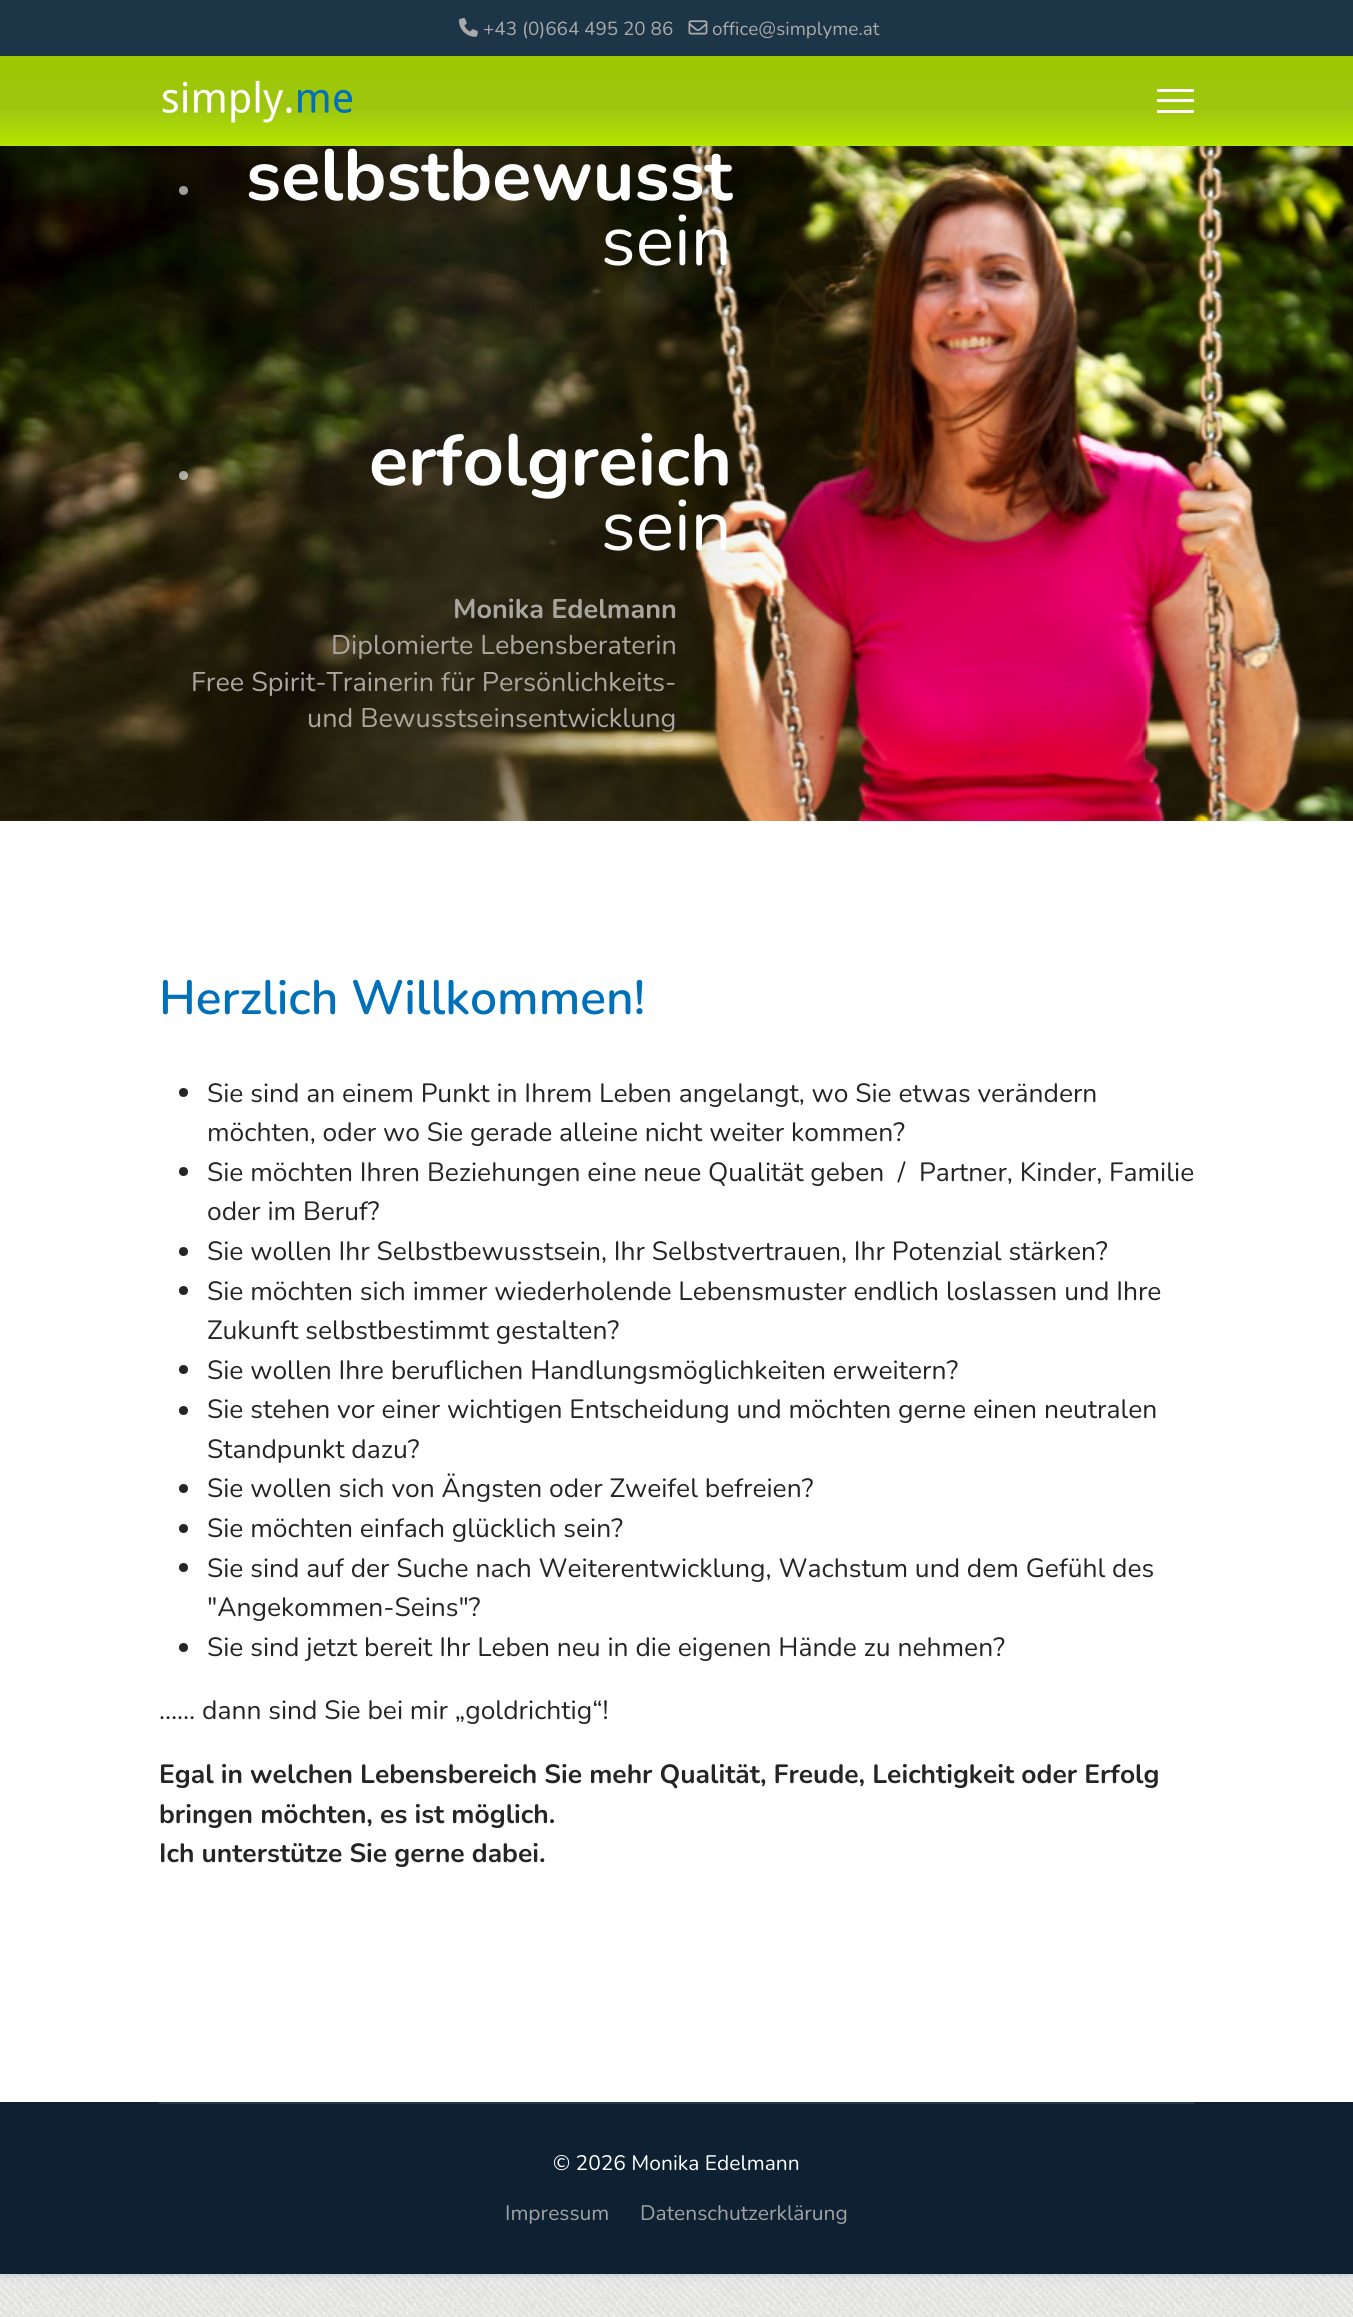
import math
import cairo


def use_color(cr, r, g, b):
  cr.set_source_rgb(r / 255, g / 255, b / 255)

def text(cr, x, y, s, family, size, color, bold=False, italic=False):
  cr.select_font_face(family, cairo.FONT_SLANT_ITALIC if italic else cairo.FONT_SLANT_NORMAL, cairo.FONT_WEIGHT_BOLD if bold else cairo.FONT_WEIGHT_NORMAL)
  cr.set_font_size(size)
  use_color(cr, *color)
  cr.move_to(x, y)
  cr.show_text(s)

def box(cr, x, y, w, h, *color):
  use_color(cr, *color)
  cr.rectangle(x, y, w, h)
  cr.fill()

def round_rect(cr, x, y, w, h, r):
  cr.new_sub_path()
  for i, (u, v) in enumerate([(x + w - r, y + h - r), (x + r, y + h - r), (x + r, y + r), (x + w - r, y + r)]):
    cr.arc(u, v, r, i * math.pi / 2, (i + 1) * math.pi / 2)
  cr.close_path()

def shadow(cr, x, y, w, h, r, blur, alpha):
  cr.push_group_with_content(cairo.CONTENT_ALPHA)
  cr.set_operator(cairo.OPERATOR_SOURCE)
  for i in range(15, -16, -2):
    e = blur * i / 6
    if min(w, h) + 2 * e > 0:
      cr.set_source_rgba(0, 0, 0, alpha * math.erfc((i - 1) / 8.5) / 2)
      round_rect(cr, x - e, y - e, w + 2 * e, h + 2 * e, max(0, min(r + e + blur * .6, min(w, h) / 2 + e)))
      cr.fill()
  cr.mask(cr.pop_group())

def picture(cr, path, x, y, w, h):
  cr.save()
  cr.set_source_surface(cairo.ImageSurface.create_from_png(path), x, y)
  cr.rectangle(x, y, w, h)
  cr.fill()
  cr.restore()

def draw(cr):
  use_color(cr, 255, 255, 255)
  cr.paint()
  picture(cr, "img_01.png", 0, 2274, 1353, 43)
  use_color(cr, 0, 0, 0)
  shadow(cr, 0, 0, 1353, 2274, 0, 4, 0.2)
  box(cr, 0, 821, 1353, 1281, 255, 255, 255)
  box(cr, 0, 0, 1353, 56, 28, 53, 71)
  picture(cr, "img_02.png", 459, 18, 19, 19)
  picture(cr, "img_03.png", 688, 20, 20, 15)
  picture(cr, "img_05.png", 0, 146, 1353, 675)
  use_color(cr, 0, 0, 0)
  shadow(cr, 0, 56, 1353, 90, 0, 3, 0.1)
  gradient = cairo.LinearGradient(677, 146, 677, 56)
  gradient.add_color_stop_rgba(0, 0.706, 0.906, 0, 1)
  gradient.add_color_stop_rgba(0.42, 0.62, 0.776, 0.067, 1)
  gradient.add_color_stop_rgba(1, 0.612, 0.784, 0, 1)
  cr.set_source(gradient)
  cr.rectangle(0, 56, 1353, 90)
  cr.fill()
  picture(cr, "img_04.png", 162, 80, 191, 43)
  box(cr, 1157, 89, 37, 3, 255, 255, 255)
  box(cr, 1157, 99, 37, 3, 255, 255, 255)
  box(cr, 1157, 110, 37, 3, 255, 255, 255)
  cr.set_source_rgba(1, 1, 1, 0.6)
  cr.arc(183.5, 190.5, 4.5, 0, 2 * math.pi)
  cr.fill()
  cr.arc(183.5, 475.5, 4.5, 0, 2 * math.pi)
  cr.fill()
  use_color(cr, 37, 37, 37)
  cr.arc(183.5, 1092.5, 4.5, 0, 2 * math.pi)
  cr.fill()
  cr.arc(183.5, 1171.5, 4.5, 0, 2 * math.pi)
  cr.fill()
  cr.arc(183.5, 1251.5, 4.5, 0, 2 * math.pi)
  cr.fill()
  cr.arc(183.5, 1290.5, 4.5, 0, 2 * math.pi)
  cr.fill()
  cr.arc(183.5, 1369.5, 4.5, 0, 2 * math.pi)
  cr.fill()
  cr.arc(183.5, 1410.5, 4.5, 0, 2 * math.pi)
  cr.fill()
  cr.arc(183.5, 1488.5, 4.5, 0, 2 * math.pi)
  cr.fill()
  cr.arc(183.5, 1528.5, 4.5, 0, 2 * math.pi)
  cr.fill()
  cr.arc(183.5, 1567.5, 4.5, 0, 2 * math.pi)
  cr.fill()
  cr.arc(183.5, 1647.5, 4.5, 0, 2 * math.pi)
  cr.fill()
  box(cr, 0, 2102, 1353, 172, 13, 33, 51)
  box(cr, 159, 2102, 1035, 2, 37, 55, 71)
  text(cr, 483, 35, "+43 (0)664 495 20 86", "Nunito ExtraLight", 18.9, (170, 170, 170))
  text(cr, 712, 35, "office@simplyme.at", "Nunito ExtraLight", 18.9, (170, 170, 170))
  text(cr, 246, 200, "selbstbewusst", "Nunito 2 ExtraLight", 72, (255, 255, 255))
  text(cr, 601, 265, "sein", "Nunito ExtraLight", 72, (255, 255, 255))
  text(cr, 369, 485, "erfolgreich", "Nunito 2 ExtraLight", 72, (255, 255, 255))
  text(cr, 601, 550, "sein", "Nunito ExtraLight", 72, (255, 255, 255))
  text(cr, 453, 618, "Monika Edelmann", "Nunito 2 ExtraLight", 27, (169, 167, 160))
  text(cr, 331, 654, "Diplomierte Lebensberaterin", "Nunito ExtraLight", 27, (169, 167, 160))
  text(cr, 191, 691, "Free Spirit-Trainerin für Persönlichkeits-", "Nunito ExtraLight", 27, (169, 167, 160))
  text(cr, 307, 727, "und Bewusstseinsentwicklung", "Nunito ExtraLight", 27, (169, 167, 160))
  text(cr, 159, 1014, "Herzlich Willkommen!", "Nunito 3 ExtraLight", 48, (0, 113, 185))
  text(cr, 207, 1102, "Sie sind an einem Punkt in Ihrem Leben angelangt, wo Sie etwas verändern", "Nunito ExtraLight", 26.4, (37, 37, 37))
  text(cr, 207, 1141, "möchten, oder wo Sie gerade alleine nicht weiter kommen?", "Nunito ExtraLight", 26.4, (37, 37, 37))
  text(cr, 207, 1181, "Sie möchten Ihren Beziehungen eine neue Qualität geben  /  Partner, Kinder, Familie", "Nunito ExtraLight", 26.4, (37, 37, 37))
  text(cr, 207, 1220, "oder im Beruf?", "Nunito ExtraLight", 26.4, (37, 37, 37))
  text(cr, 207, 1260, "Sie wollen Ihr Selbstbewusstsein, Ihr Selbstvertrauen, Ihr Potenzial stärken?", "Nunito ExtraLight", 26.4, (37, 37, 37))
  text(cr, 207, 1300, "Sie möchten sich immer wiederholende Lebensmuster endlich loslassen und Ihre", "Nunito ExtraLight", 26.4, (37, 37, 37))
  text(cr, 207, 1339, "Zukunft selbstbestimmt gestalten?", "Nunito ExtraLight", 26.4, (37, 37, 37))
  text(cr, 207, 1379, "Sie wollen Ihre beruflichen Handlungsmöglichkeiten erweitern?", "Nunito ExtraLight", 26.4, (37, 37, 37))
  text(cr, 207, 1418, "Sie stehen vor einer wichtigen Entscheidung und möchten gerne einen neutralen", "Nunito ExtraLight", 26.4, (37, 37, 37))
  text(cr, 207, 1458, "Standpunkt dazu?", "Nunito ExtraLight", 26.4, (37, 37, 37))
  text(cr, 207, 1497, "Sie wollen sich von Ängsten oder Zweifel befreien?", "Nunito ExtraLight", 26.4, (37, 37, 37))
  text(cr, 207, 1537, "Sie möchten einfach glücklich sein?", "Nunito ExtraLight", 26.4, (37, 37, 37))
  text(cr, 207, 1577, "Sie sind auf der Suche nach Weiterentwicklung, Wachstum und dem Gefühl des", "Nunito ExtraLight", 26.4, (37, 37, 37))
  text(cr, 207, 1616, "\"Angekommen-Seins\"?", "Nunito ExtraLight", 26.4, (37, 37, 37))
  text(cr, 207, 1656, "Sie sind jetzt bereit Ihr Leben neu in die eigenen Hände zu nehmen?", "Nunito ExtraLight", 26.4, (37, 37, 37))
  text(cr, 159, 1719, "…… dann sind Sie bei mir „goldrichtig“!", "Nunito ExtraLight", 26.4, (37, 37, 37))
  text(cr, 159, 1783, "Egal in welchen Lebensbereich Sie mehr Qualität, Freude, Leichtigkeit oder Erfolg", "Nunito 2 ExtraLight", 26.4, (37, 37, 37))
  text(cr, 159, 1823, "bringen möchten, es ist möglich.", "Nunito 2 ExtraLight", 26.4, (37, 37, 37))
  text(cr, 159, 1862, "Ich unterstütze Sie gerne dabei.", "Nunito 2 ExtraLight", 26.4, (37, 37, 37))
  text(cr, 553, 2170, "© 2026 Monika Edelmann", "Nunito ExtraLight", 21, (255, 255, 255))
  text(cr, 505, 2220, "Impressum", "Nunito ExtraLight", 21, (162, 162, 162))
  text(cr, 640, 2220, "Datenschutzerklärung", "Nunito ExtraLight", 21, (162, 162, 162))


surface = cairo.ImageSurface(cairo.FORMAT_RGB24, 1353, 2317)
cr = cairo.Context(surface)
options = cairo.FontOptions()
options.set_hint_metrics(cairo.HINT_METRICS_OFF)
options.set_hint_style(cairo.HINT_STYLE_NONE)
cr.set_font_options(options)
cr.set_miter_limit(4)
draw(cr)
surface.write_to_png("out.png")
